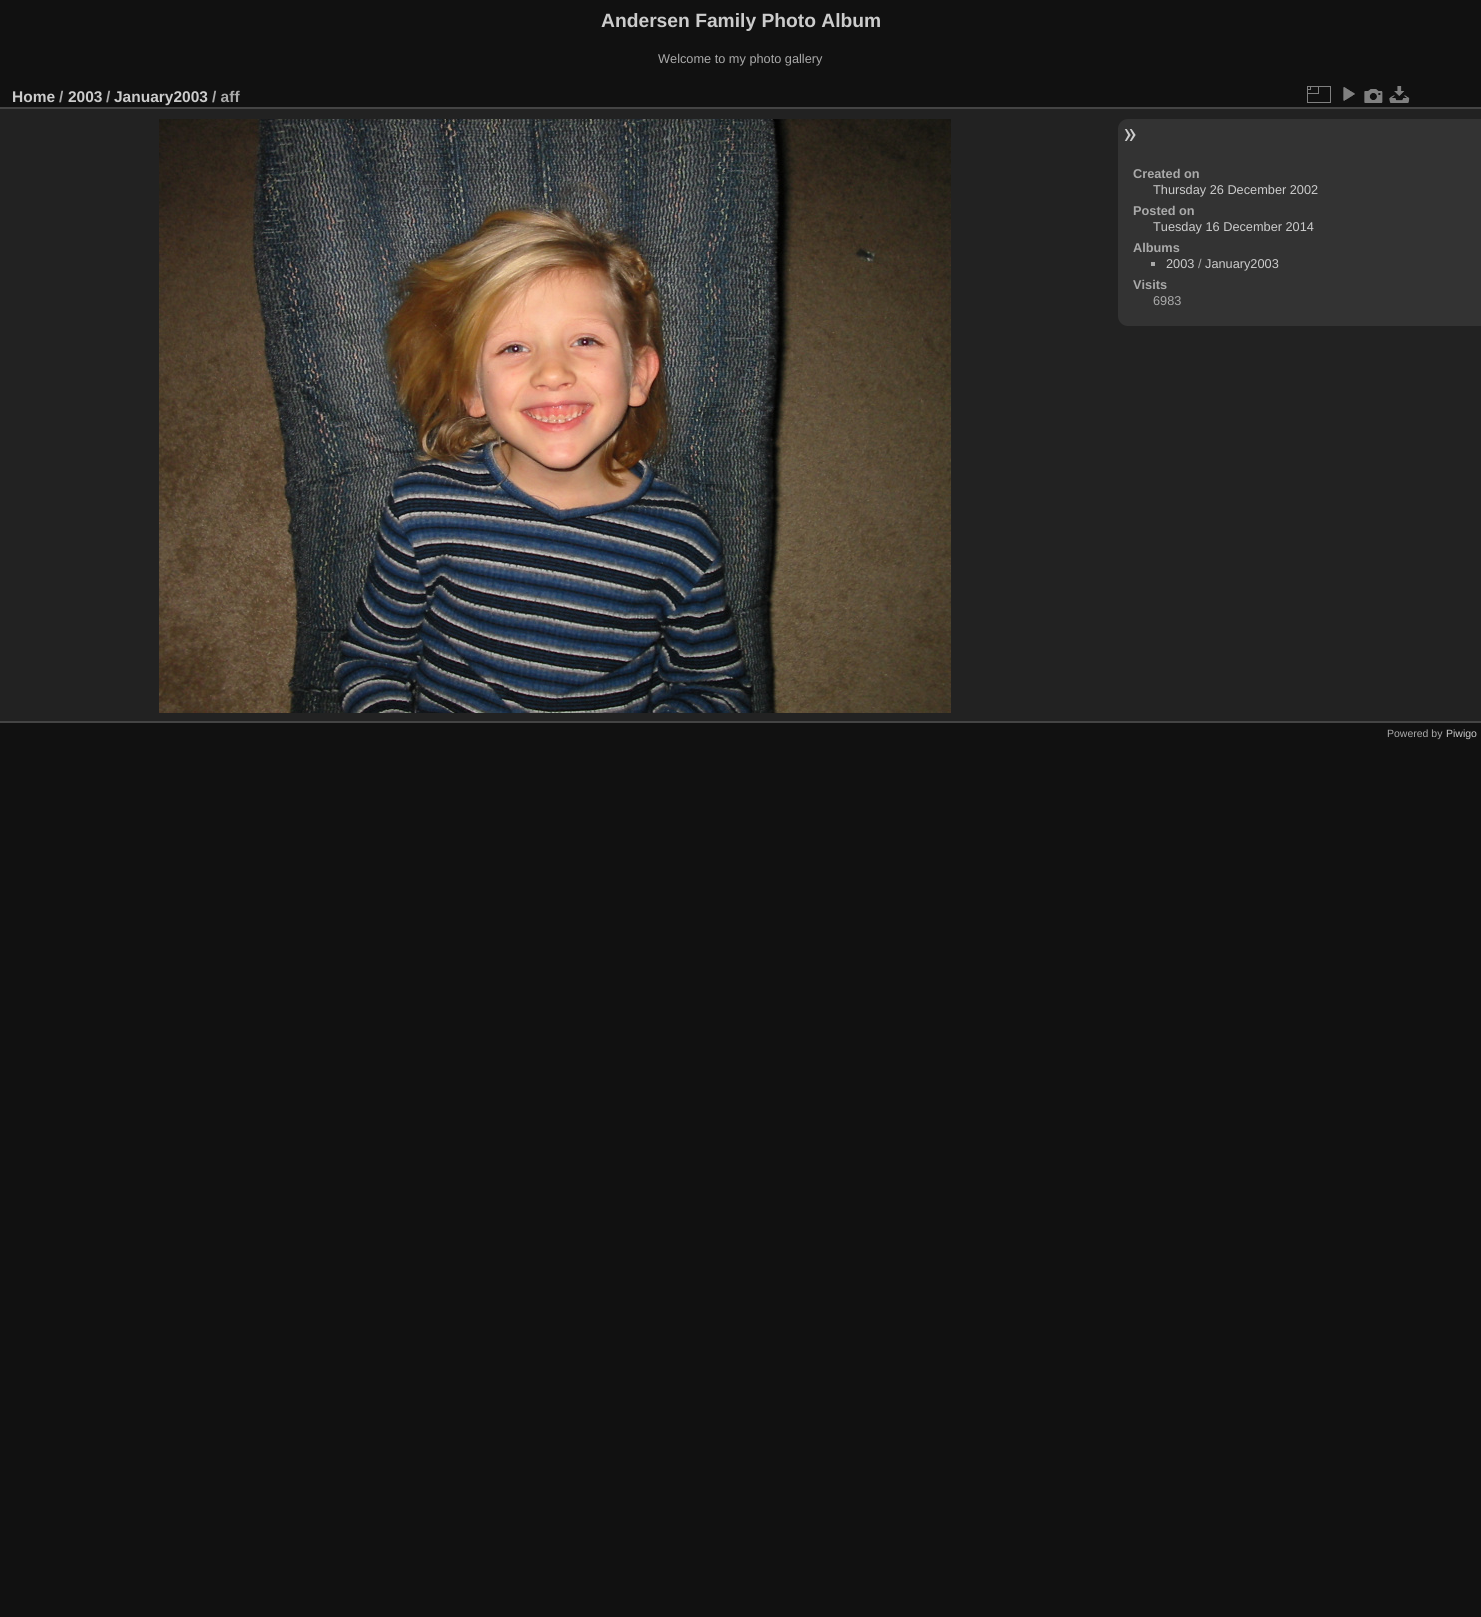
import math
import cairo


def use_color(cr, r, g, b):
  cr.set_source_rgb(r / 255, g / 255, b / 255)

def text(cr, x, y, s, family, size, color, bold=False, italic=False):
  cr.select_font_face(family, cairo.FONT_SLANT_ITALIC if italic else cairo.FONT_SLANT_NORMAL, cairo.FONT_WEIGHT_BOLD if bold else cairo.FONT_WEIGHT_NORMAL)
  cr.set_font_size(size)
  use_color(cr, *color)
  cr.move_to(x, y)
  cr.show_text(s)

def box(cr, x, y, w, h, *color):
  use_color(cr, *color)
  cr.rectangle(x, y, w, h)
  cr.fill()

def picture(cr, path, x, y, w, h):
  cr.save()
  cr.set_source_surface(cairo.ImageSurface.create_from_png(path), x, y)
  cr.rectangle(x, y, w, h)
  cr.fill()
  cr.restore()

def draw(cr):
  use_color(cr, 17, 17, 17)
  cr.paint()
  box(cr, 0, 109, 1481, 612, 34, 34, 34)
  box(cr, 0, 721, 1481, 2, 68, 68, 68)
  box(cr, 0, 107, 1481, 2, 68, 68, 68)
  picture(cr, "img_01.png", 1307, 86, 24, 17)
  picture(cr, "img_02.png", 1343, 87, 12, 14)
  picture(cr, "img_03.png", 1364, 89, 19, 14)
  picture(cr, "img_04.png", 1389, 86, 21, 17)
  picture(cr, "img_05.png", 159, 119, 792, 594)
  use_color(cr, 51, 51, 51)
  cr.new_path()
  cr.move_to(1128, 119)
  cr.line_to(1481, 119)
  cr.line_to(1481, 326)
  cr.line_to(1128, 326)
  cr.curve_to(1122.5, 326, 1118, 321.5, 1118, 316)
  cr.line_to(1118, 129)
  cr.curve_to(1118, 123.5, 1122.5, 119, 1128, 119)
  cr.close_path()
  cr.fill()
  picture(cr, "img_06.png", 1124, 129, 12, 12)
  box(cr, 1151, 262, 4, 4, 170, 170, 170)
  text(cr, 601, 27, "Andersen Family Photo Album", "Liberation Sans", 19.25, (204, 204, 204), bold=True)
  text(cr, 658, 63, "Welcome to my photo gallery", "Liberation Sans", 12.75, (170, 170, 170))
  text(cr, 12, 102, "Home", "Liberation Sans", 15.5, (204, 204, 204), bold=True)
  text(cr, 59, 102, "/", "Liberation Sans", 15.5, (170, 170, 170), bold=True)
  text(cr, 68, 102, "2003", "Liberation Sans", 15.5, (204, 204, 204), bold=True)
  text(cr, 106, 102, "/", "Liberation Sans", 15.5, (170, 170, 170), bold=True)
  text(cr, 114, 102, "January2003", "Liberation Sans", 15.5, (204, 204, 204), bold=True)
  text(cr, 212, 102, "/ aff", "Liberation Sans", 15.5, (170, 170, 170), bold=True)
  text(cr, 1133, 178, "Created on", "Liberation Sans", 12.75, (170, 170, 170), bold=True)
  text(cr, 1153, 194, "Thursday 26 December 2002", "Liberation Sans", 12.75, (204, 204, 204))
  text(cr, 1133, 215, "Posted on", "Liberation Sans", 12.75, (170, 170, 170), bold=True)
  text(cr, 1153, 231, "Tuesday 16 December 2014", "Liberation Sans", 12.75, (204, 204, 204))
  text(cr, 1133, 252, "Albums", "Liberation Sans", 12.75, (170, 170, 170), bold=True)
  text(cr, 1166, 268, "2003", "Liberation Sans", 12.75, (204, 204, 204))
  text(cr, 1198, 268, "/", "Liberation Sans", 12.75, (170, 170, 170))
  text(cr, 1205, 268, "January2003", "Liberation Sans", 12.75, (204, 204, 204))
  text(cr, 1133, 289, "Visits", "Liberation Sans", 12.75, (170, 170, 170), bold=True)
  text(cr, 1153, 305, "6983", "Liberation Sans", 12.75, (170, 170, 170))
  text(cr, 1387, 737, "Powered by", "Liberation Sans", 10.5, (170, 170, 170))
  text(cr, 1446, 737, "Piwigo", "Liberation Sans", 10.5, (204, 204, 204))


surface = cairo.ImageSurface(cairo.FORMAT_RGB24, 1481, 1617)
cr = cairo.Context(surface)
options = cairo.FontOptions()
options.set_hint_metrics(cairo.HINT_METRICS_OFF)
options.set_hint_style(cairo.HINT_STYLE_NONE)
cr.set_font_options(options)
cr.set_miter_limit(4)
draw(cr)
surface.write_to_png("out.png")
